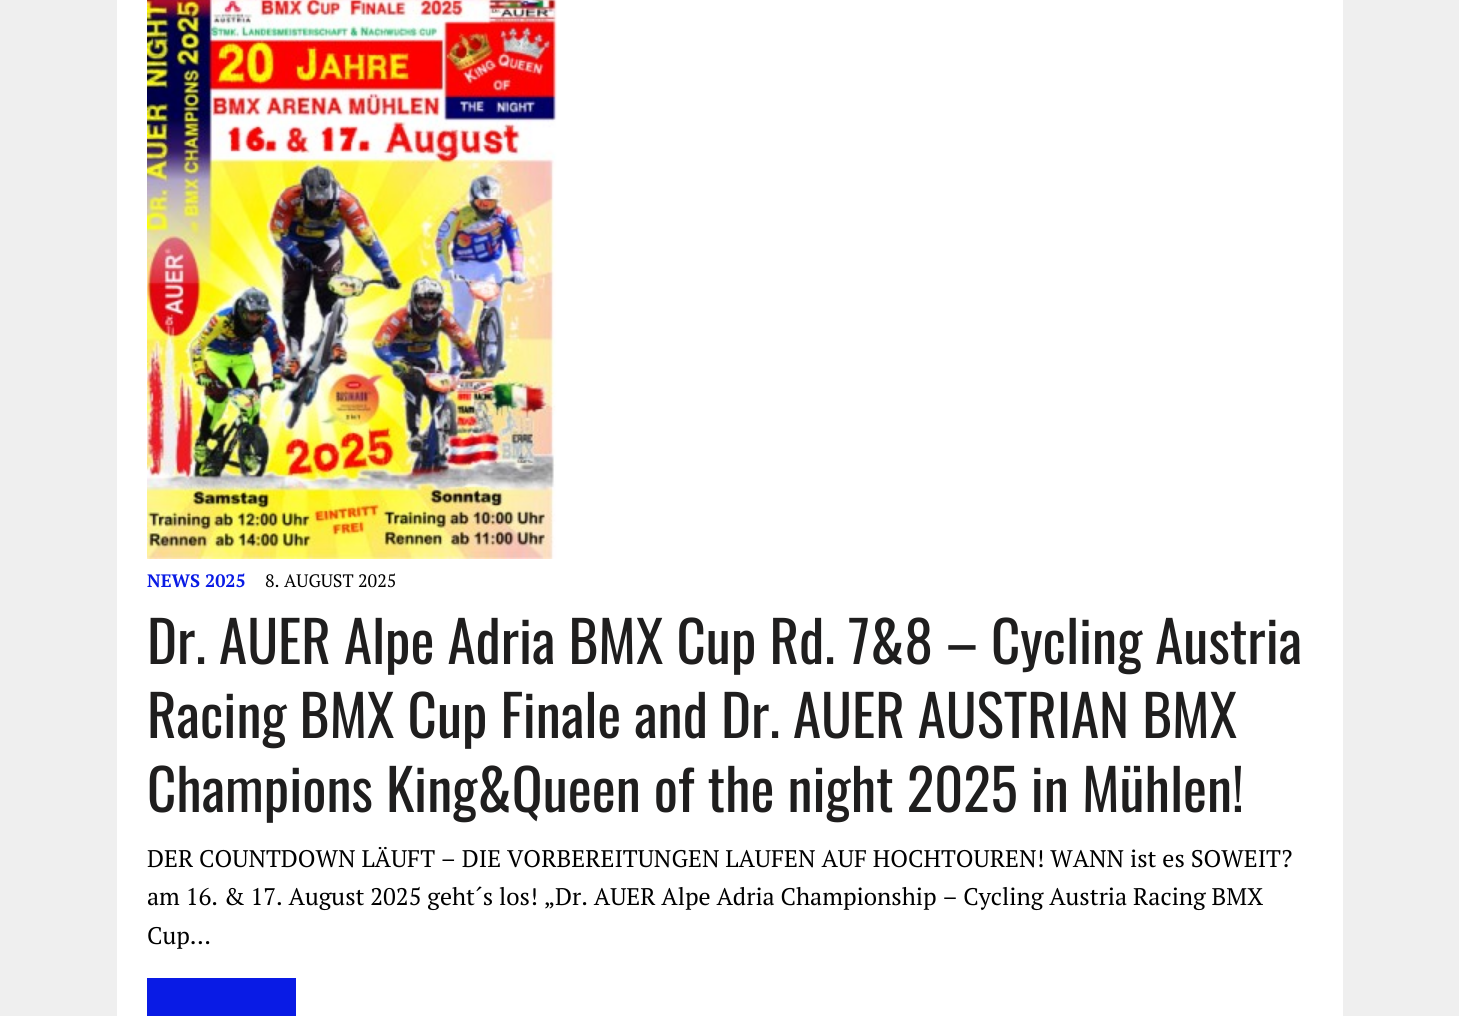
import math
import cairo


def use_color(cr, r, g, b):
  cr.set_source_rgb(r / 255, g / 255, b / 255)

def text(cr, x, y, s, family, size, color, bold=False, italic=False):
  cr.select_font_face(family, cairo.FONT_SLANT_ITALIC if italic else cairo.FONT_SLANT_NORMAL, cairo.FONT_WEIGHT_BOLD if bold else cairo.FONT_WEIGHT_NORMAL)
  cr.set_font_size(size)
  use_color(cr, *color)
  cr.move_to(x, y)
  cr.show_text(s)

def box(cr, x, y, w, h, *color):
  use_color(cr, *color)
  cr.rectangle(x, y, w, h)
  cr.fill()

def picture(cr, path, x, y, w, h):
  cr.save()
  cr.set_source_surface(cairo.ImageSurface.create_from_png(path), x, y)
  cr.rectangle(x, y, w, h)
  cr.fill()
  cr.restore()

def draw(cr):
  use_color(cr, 239, 239, 239)
  cr.paint()
  box(cr, 117, 0, 1226, 1016, 255, 255, 255)
  picture(cr, "img_01.png", 147, 0, 410, 559)
  box(cr, 147, 978, 149, 38, 9, 27, 229)
  text(cr, 147, 587, "NEWS 2025", "PT Serif", 18, (9, 27, 229), bold=True)
  text(cr, 265, 587, "8. AUGUST 2025", "PT Serif", 18, (0, 0, 0))
  text(cr, 147, 664, "Dr. AUER Alpe Adria BMX Cup Rd. 7&8 – Cycling Austria", "Oswald", 57, (31, 30, 30))
  text(cr, 147, 738, "Racing BMX Cup Finale and Dr. AUER AUSTRIAN BMX", "Oswald", 57, (31, 30, 30))
  text(cr, 147, 812, "Champions King&Queen of the night 2025 in Mühlen!", "Oswald", 57, (31, 30, 30))
  text(cr, 147, 867, "DER COUNTDOWN LÄUFT – DIE VORBEREITUNGEN LAUFEN AUF HOCHTOUREN! WANN ist es SOWEIT?", "PT Serif", 24, (0, 0, 0))
  text(cr, 147, 905, "am 16. & 17. August 2025 geht´s los! „Dr. AUER Alpe Adria Championship – Cycling Austria Racing BMX", "PT Serif", 24, (0, 0, 0))
  text(cr, 147, 944, "Cup…", "PT Serif", 24, (0, 0, 0))


surface = cairo.ImageSurface(cairo.FORMAT_RGB24, 1459, 1016)
cr = cairo.Context(surface)
options = cairo.FontOptions()
options.set_hint_metrics(cairo.HINT_METRICS_OFF)
options.set_hint_style(cairo.HINT_STYLE_NONE)
cr.set_font_options(options)
cr.set_miter_limit(4)
draw(cr)
surface.write_to_png("out.png")
